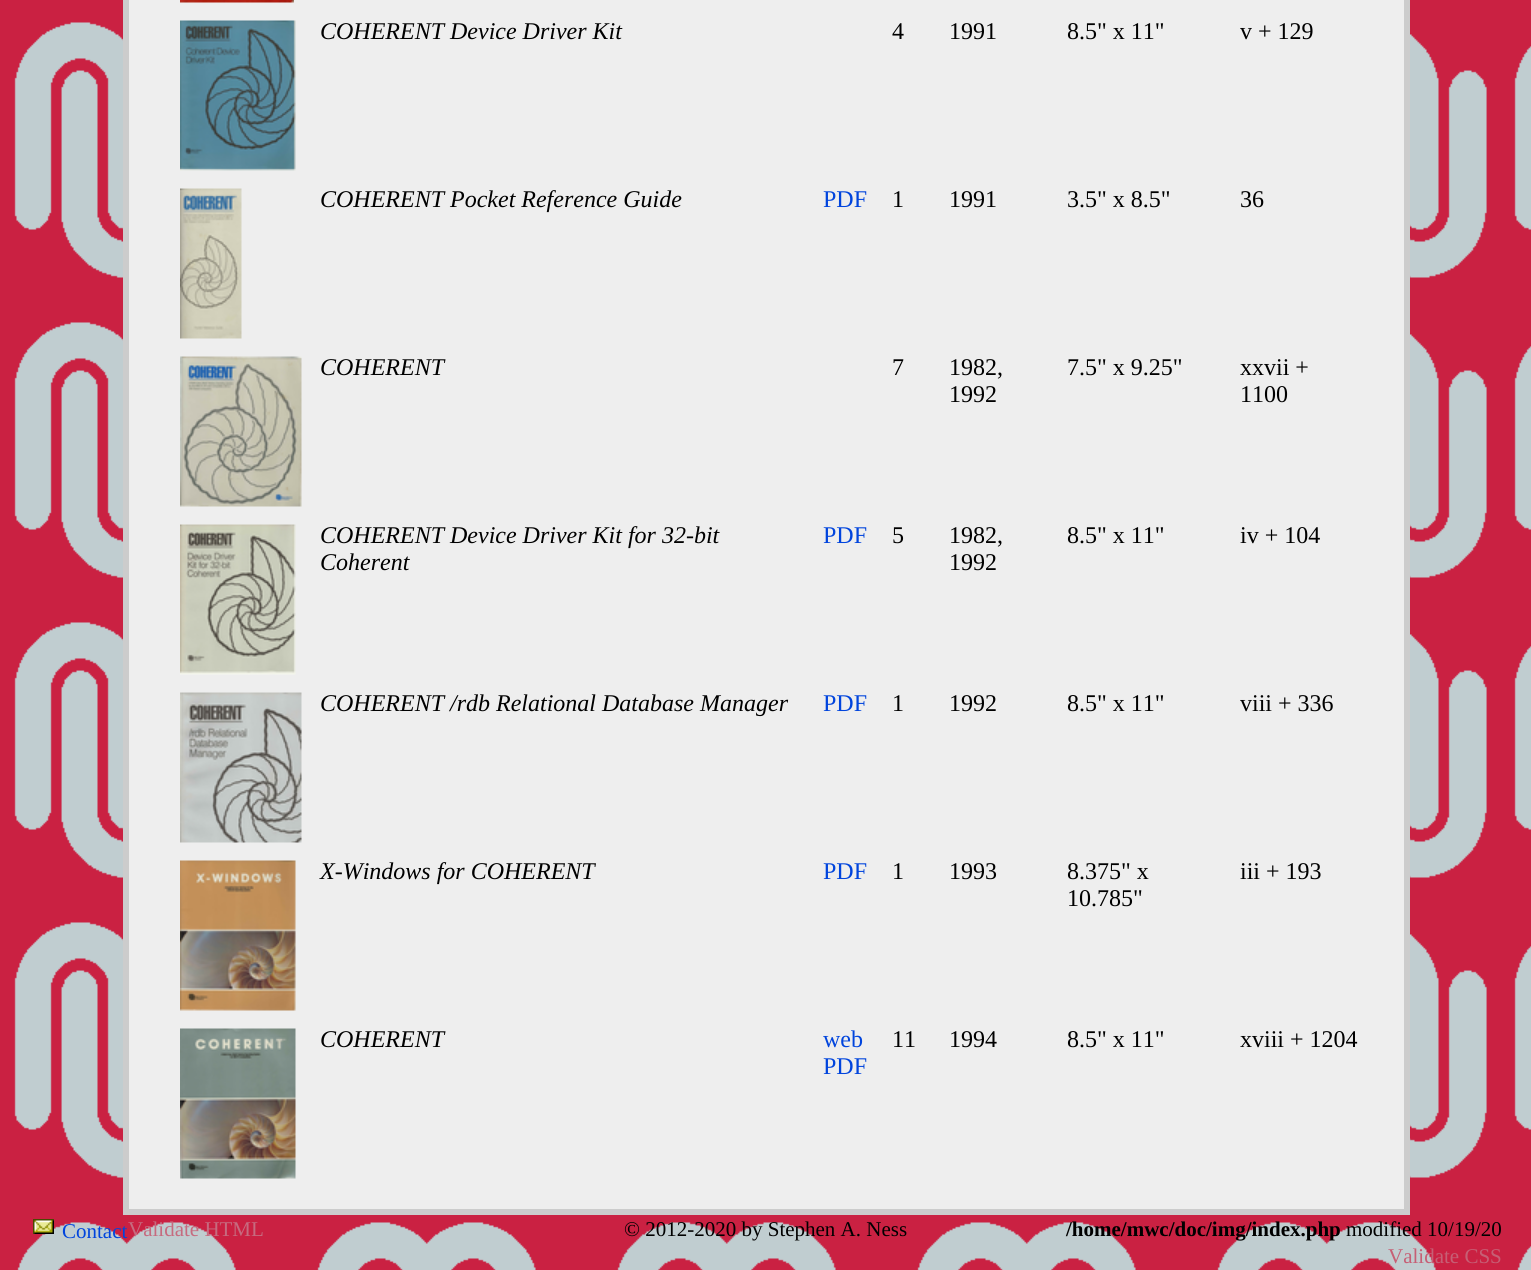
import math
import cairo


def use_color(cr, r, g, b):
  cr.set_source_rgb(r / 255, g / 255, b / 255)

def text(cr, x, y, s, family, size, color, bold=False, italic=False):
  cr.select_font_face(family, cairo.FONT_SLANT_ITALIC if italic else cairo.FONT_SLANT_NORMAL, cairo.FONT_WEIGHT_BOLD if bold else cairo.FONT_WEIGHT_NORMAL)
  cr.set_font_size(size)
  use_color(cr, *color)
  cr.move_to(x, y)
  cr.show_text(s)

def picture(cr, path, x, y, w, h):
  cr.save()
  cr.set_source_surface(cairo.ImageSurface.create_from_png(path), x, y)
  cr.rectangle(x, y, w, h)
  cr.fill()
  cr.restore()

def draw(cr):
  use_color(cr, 255, 255, 255)
  cr.paint()
  picture(cr, "img_01.png", 0, 0, 1531, 1270)
  use_color(cr, 238, 238, 238)
  cr.rectangle(126, -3, 1281, 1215)
  cr.fill_preserve()
  use_color(cr, 204, 204, 204)
  cr.set_line_width(6)
  cr.stroke()
  picture(cr, "img_02.png", 180, 0, 114, 3)
  picture(cr, "img_03.png", 180, 20, 116, 151)
  picture(cr, "img_04.png", 180, 188, 62, 151)
  picture(cr, "img_05.png", 180, 356, 122, 151)
  picture(cr, "img_06.png", 180, 524, 116, 151)
  picture(cr, "img_07.png", 180, 692, 122, 151)
  picture(cr, "img_08.png", 180, 860, 116, 151)
  picture(cr, "img_09.png", 180, 1028, 116, 151)
  picture(cr, "img_10.png", 33, 1219, 21, 15)
  text(cr, 320, 39, "COHERENT Device Driver Kit", "Liberation Serif", 24, (0, 0, 0), italic=True)
  text(cr, 892, 39, "4", "Liberation Serif", 24, (0, 0, 0))
  text(cr, 949, 39, "1991", "Liberation Serif", 24, (0, 0, 0))
  text(cr, 1067, 39, "8.5\" x 11\"", "Liberation Serif", 24, (0, 0, 0))
  text(cr, 1240, 39, "v + 129", "Liberation Serif", 24, (0, 0, 0))
  text(cr, 320, 207, "COHERENT Pocket Reference Guide", "Liberation Serif", 24, (0, 0, 0), italic=True)
  text(cr, 823, 207, "PDF", "Liberation Serif", 24, (0, 68, 221))
  text(cr, 892, 207, "1", "Liberation Serif", 24, (0, 0, 0))
  text(cr, 949, 207, "1991", "Liberation Serif", 24, (0, 0, 0))
  text(cr, 1067, 207, "3.5\" x 8.5\"", "Liberation Serif", 24, (0, 0, 0))
  text(cr, 1240, 207, "36", "Liberation Serif", 24, (0, 0, 0))
  text(cr, 320, 375, "COHERENT", "Liberation Serif", 24, (0, 0, 0), italic=True)
  text(cr, 892, 375, "7", "Liberation Serif", 24, (0, 0, 0))
  text(cr, 949, 375, "1982,", "Liberation Serif", 24, (0, 0, 0))
  text(cr, 949, 402, "1992", "Liberation Serif", 24, (0, 0, 0))
  text(cr, 1067, 375, "7.5\" x 9.25\"", "Liberation Serif", 24, (0, 0, 0))
  text(cr, 1240, 375, "xxvii +", "Liberation Serif", 24, (0, 0, 0))
  text(cr, 1240, 402, "1100", "Liberation Serif", 24, (0, 0, 0))
  text(cr, 320, 543, "COHERENT Device Driver Kit for 32-bit", "Liberation Serif", 24, (0, 0, 0), italic=True)
  text(cr, 320, 570, "Coherent", "Liberation Serif", 24, (0, 0, 0), italic=True)
  text(cr, 823, 543, "PDF", "Liberation Serif", 24, (0, 68, 221))
  text(cr, 892, 543, "5", "Liberation Serif", 24, (0, 0, 0))
  text(cr, 949, 543, "1982,", "Liberation Serif", 24, (0, 0, 0))
  text(cr, 949, 570, "1992", "Liberation Serif", 24, (0, 0, 0))
  text(cr, 1067, 543, "8.5\" x 11\"", "Liberation Serif", 24, (0, 0, 0))
  text(cr, 1240, 543, "iv + 104", "Liberation Serif", 24, (0, 0, 0))
  text(cr, 320, 711, "COHERENT /rdb Relational Database Manager", "Liberation Serif", 24, (0, 0, 0), italic=True)
  text(cr, 823, 711, "PDF", "Liberation Serif", 24, (0, 68, 221))
  text(cr, 892, 711, "1", "Liberation Serif", 24, (0, 0, 0))
  text(cr, 949, 711, "1992", "Liberation Serif", 24, (0, 0, 0))
  text(cr, 1067, 711, "8.5\" x 11\"", "Liberation Serif", 24, (0, 0, 0))
  text(cr, 1240, 711, "viii + 336", "Liberation Serif", 24, (0, 0, 0))
  text(cr, 320, 879, "X-Windows for COHERENT", "Liberation Serif", 24, (0, 0, 0), italic=True)
  text(cr, 823, 879, "PDF", "Liberation Serif", 24, (0, 68, 221))
  text(cr, 892, 879, "1", "Liberation Serif", 24, (0, 0, 0))
  text(cr, 949, 879, "1993", "Liberation Serif", 24, (0, 0, 0))
  text(cr, 1067, 879, "8.375\" x", "Liberation Serif", 24, (0, 0, 0))
  text(cr, 1067, 906, "10.785\"", "Liberation Serif", 24, (0, 0, 0))
  text(cr, 1240, 879, "iii + 193", "Liberation Serif", 24, (0, 0, 0))
  text(cr, 320, 1047, "COHERENT", "Liberation Serif", 24, (0, 0, 0), italic=True)
  text(cr, 823, 1047, "web", "Liberation Serif", 24, (0, 68, 221))
  text(cr, 823, 1074, "PDF", "Liberation Serif", 24, (0, 68, 221))
  text(cr, 892, 1047, "11", "Liberation Serif", 24, (0, 0, 0))
  text(cr, 949, 1047, "1994", "Liberation Serif", 24, (0, 0, 0))
  text(cr, 1067, 1047, "8.5\" x 11\"", "Liberation Serif", 24, (0, 0, 0))
  text(cr, 1240, 1047, "xviii + 1204", "Liberation Serif", 24, (0, 0, 0))
  text(cr, 62, 1238, "Contact", "Liberation Serif", 21, (0, 68, 221))
  text(cr, 128, 1236, "Validate HTML", "Liberation Serif", 21, (198, 107, 127))
  text(cr, 624, 1236, "© 2012-2020 by Stephen A. Ness", "Liberation Serif", 21, (0, 0, 0))
  text(cr, 1066, 1236, "/home/mwc/doc/img/index.php", "Liberation Serif", 21, (0, 0, 0), bold=True)
  text(cr, 1346, 1236, "modified 10/19/20", "Liberation Serif", 21, (0, 0, 0))
  text(cr, 1388, 1263, "Validate CSS", "Liberation Serif", 21, (198, 95, 117))


surface = cairo.ImageSurface(cairo.FORMAT_RGB24, 1531, 1270)
cr = cairo.Context(surface)
options = cairo.FontOptions()
options.set_hint_metrics(cairo.HINT_METRICS_OFF)
options.set_hint_style(cairo.HINT_STYLE_NONE)
cr.set_font_options(options)
cr.set_miter_limit(4)
draw(cr)
surface.write_to_png("out.png")
